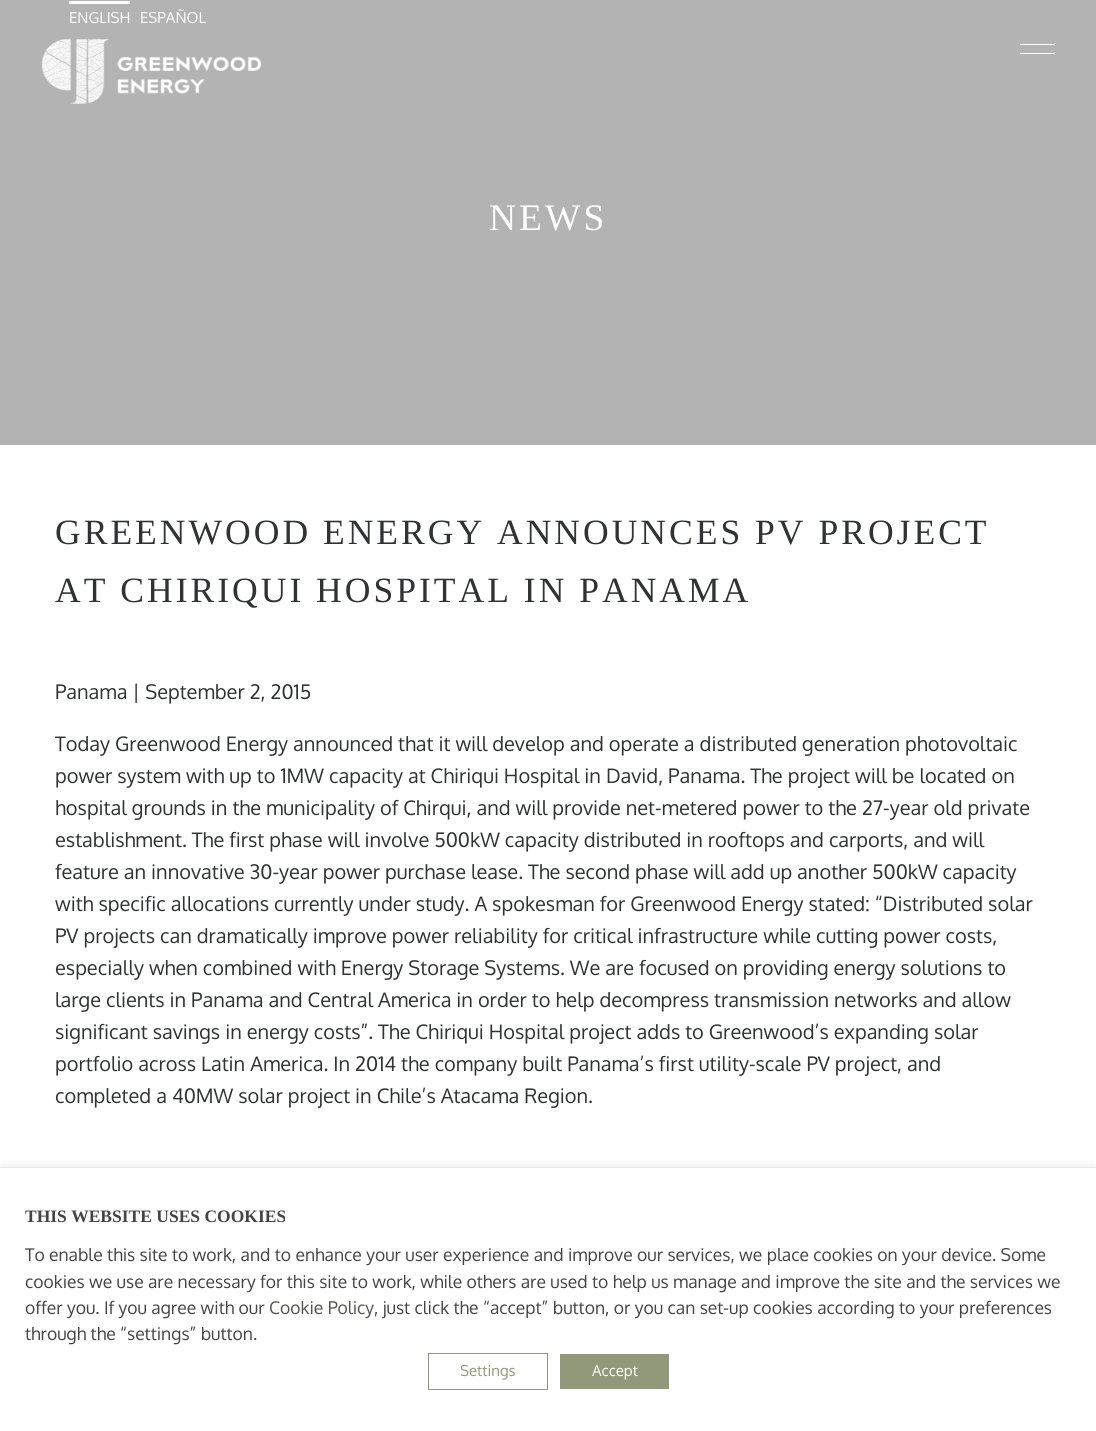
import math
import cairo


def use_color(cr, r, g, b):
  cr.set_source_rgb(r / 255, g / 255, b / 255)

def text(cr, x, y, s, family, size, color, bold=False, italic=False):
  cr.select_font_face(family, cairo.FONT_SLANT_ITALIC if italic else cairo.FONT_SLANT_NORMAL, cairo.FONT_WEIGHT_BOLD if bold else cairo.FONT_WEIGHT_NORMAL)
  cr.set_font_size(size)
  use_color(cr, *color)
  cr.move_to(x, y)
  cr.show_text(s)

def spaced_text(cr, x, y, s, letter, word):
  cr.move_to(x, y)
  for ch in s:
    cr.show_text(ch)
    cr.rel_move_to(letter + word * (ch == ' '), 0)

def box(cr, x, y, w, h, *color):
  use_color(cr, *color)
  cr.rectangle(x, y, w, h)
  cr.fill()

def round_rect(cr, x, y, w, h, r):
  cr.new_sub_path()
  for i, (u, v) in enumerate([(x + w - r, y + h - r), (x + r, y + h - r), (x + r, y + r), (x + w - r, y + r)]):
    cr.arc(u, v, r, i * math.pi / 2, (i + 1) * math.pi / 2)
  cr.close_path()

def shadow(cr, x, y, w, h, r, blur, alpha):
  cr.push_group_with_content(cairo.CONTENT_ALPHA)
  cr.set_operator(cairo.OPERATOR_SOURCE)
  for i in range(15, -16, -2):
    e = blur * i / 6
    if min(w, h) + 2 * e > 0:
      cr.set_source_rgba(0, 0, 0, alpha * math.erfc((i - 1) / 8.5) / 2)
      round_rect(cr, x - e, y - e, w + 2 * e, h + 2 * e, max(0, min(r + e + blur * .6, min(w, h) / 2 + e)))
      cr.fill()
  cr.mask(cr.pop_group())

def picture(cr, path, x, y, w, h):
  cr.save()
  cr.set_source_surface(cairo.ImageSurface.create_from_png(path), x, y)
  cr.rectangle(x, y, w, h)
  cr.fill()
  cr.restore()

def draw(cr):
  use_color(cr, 255, 255, 255)
  cr.paint()
  box(cr, 0, 0, 1096, 445, 179, 179, 179)
  box(cr, 69, 1, 61, 3, 255, 255, 255)
  picture(cr, "img_01.png", 41, 39, 221, 65)
  box(cr, 1020, 44, 35, 1, 255, 255, 255)
  box(cr, 1020, 53, 35, 1, 255, 255, 255)
  use_color(cr, 0, 0, 0)
  shadow(cr, 0, 1174, 1096, 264, 0, 6, 0.5)
  box(cr, 0, 1168, 1096, 263, 255, 255, 255)
  cr.rectangle(428.5, 1353.5, 119, 36)
  use_color(cr, 145, 153, 122)
  cr.set_line_width(1)
  cr.stroke()
  box(cr, 560, 1354, 109, 35, 145, 153, 122)
  text(cr, 69, 23, "ENGLISH", "Oxygen", 15, (255, 255, 255))
  text(cr, 140, 23, "ESPAÑOL", "Oxygen", 15, (255, 255, 255))
  cr.select_font_face("Liberation Serif")
  cr.set_font_size(37.5)
  spaced_text(cr, 489, 230, "NEWS", 3, 0)
  cr.set_font_size(35.55)
  use_color(cr, 48, 50, 51)
  spaced_text(cr, 55, 544, "GREENWOOD ENERGY ANNOUNCES PV PROJECT", 3, 0)
  spaced_text(cr, 55, 602, "AT CHIRIQUI HOSPITAL IN PANAMA", 3, 0)
  text(cr, 55, 699, "Panama | September 2, 2015", "Oxygen", 20, (48, 50, 51))
  text(cr, 55, 751, "Today Greenwood Energy announced that it will develop and operate a distributed generation photovoltaic", "Oxygen", 20, (48, 50, 51))
  text(cr, 55, 783, "power system with up to 1MW capacity at Chiriqui Hospital in David, Panama. The project will be located on", "Oxygen", 20, (48, 50, 51))
  text(cr, 55, 815, "hospital grounds in the municipality of Chirqui, and will provide net-metered power to the 27-year old private", "Oxygen", 20, (48, 50, 51))
  text(cr, 55, 847, "establishment. The first phase will involve 500kW capacity distributed in rooftops and carports, and will", "Oxygen", 20, (48, 50, 51))
  text(cr, 55, 879, "feature an innovative 30-year power purchase lease. The second phase will add up another 500kW capacity", "Oxygen", 20, (48, 50, 51))
  text(cr, 55, 911, "with specific allocations currently under study. A spokesman for Greenwood Energy stated: “Distributed solar", "Oxygen", 20, (48, 50, 51))
  text(cr, 55, 943, "PV projects can dramatically improve power reliability for critical infrastructure while cutting power costs,", "Oxygen", 20, (48, 50, 51))
  text(cr, 55, 975, "especially when combined with Energy Storage Systems. We are focused on providing energy solutions to", "Oxygen", 20, (48, 50, 51))
  text(cr, 55, 1007, "large clients in Panama and Central America in order to help decompress transmission networks and allow", "Oxygen", 20, (48, 50, 51))
  text(cr, 55, 1039, "significant savings in energy costs”. The Chiriqui Hospital project adds to Greenwood’s expanding solar", "Oxygen", 20, (48, 50, 51))
  text(cr, 55, 1071, "portfolio across Latin America. In 2014 the company built Panama’s first utility-scale PV project, and", "Oxygen", 20, (48, 50, 51))
  text(cr, 55, 1103, "completed a 40MW solar project in Chile’s Atacama Region.", "Oxygen", 20, (48, 50, 51))
  text(cr, 25, 1222, "THIS WEBSITE USES COOKIES", "Liberation Serif", 17.5, (68, 68, 68), bold=True)
  text(cr, 25, 1261, "To enable this site to work, and to enhance your user experience and improve our services, we place cookies on your device. Some", "Oxygen", 17.5, (68, 68, 68))
  text(cr, 25, 1288, "cookies we use are necessary for this site to work, while others are used to help us manage and improve the site and the services we", "Oxygen", 17.5, (68, 68, 68))
  text(cr, 25, 1314, "offer you. If you agree with our", "Oxygen", 17.5, (68, 68, 68))
  text(cr, 269, 1314, "Cookie Policy", "Oxygen", 17.5, (79, 84, 76))
  text(cr, 374, 1314, ", just click the “accept” button, or you can set-up cookies according to your preferences", "Oxygen", 17.5, (68, 68, 68))
  text(cr, 25, 1340, "through the “settings” button.", "Oxygen", 17.5, (68, 68, 68))
  text(cr, 460, 1376, "Settings", "Oxygen", 15, (145, 153, 122))
  text(cr, 592, 1376, "Accept", "Oxygen", 15, (255, 255, 255))


surface = cairo.ImageSurface(cairo.FORMAT_RGB24, 1096, 1431)
cr = cairo.Context(surface)
options = cairo.FontOptions()
options.set_hint_metrics(cairo.HINT_METRICS_OFF)
options.set_hint_style(cairo.HINT_STYLE_NONE)
cr.set_font_options(options)
cr.set_miter_limit(4)
draw(cr)
surface.write_to_png("out.png")
